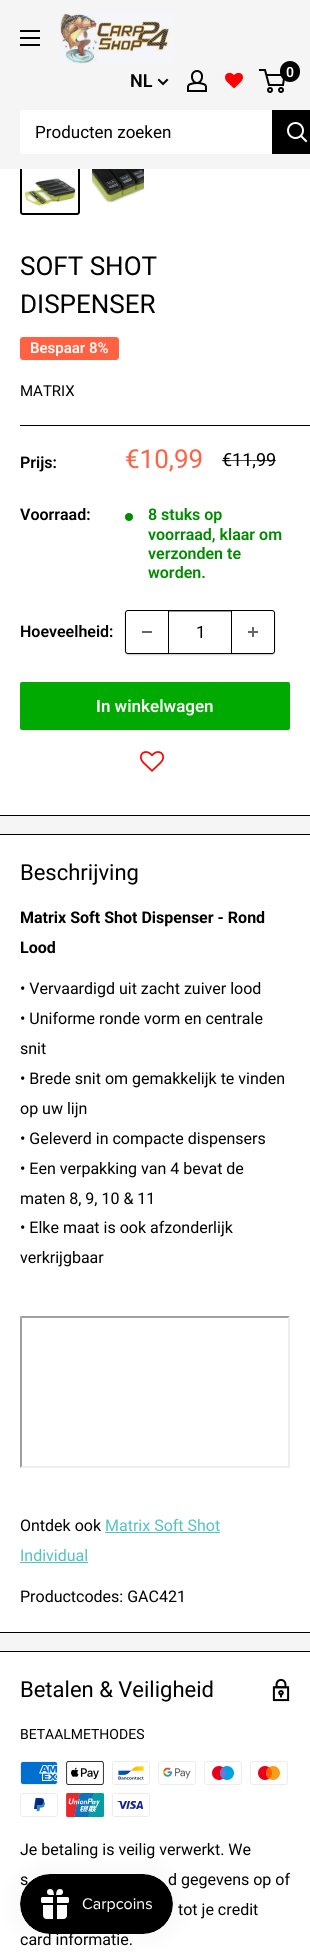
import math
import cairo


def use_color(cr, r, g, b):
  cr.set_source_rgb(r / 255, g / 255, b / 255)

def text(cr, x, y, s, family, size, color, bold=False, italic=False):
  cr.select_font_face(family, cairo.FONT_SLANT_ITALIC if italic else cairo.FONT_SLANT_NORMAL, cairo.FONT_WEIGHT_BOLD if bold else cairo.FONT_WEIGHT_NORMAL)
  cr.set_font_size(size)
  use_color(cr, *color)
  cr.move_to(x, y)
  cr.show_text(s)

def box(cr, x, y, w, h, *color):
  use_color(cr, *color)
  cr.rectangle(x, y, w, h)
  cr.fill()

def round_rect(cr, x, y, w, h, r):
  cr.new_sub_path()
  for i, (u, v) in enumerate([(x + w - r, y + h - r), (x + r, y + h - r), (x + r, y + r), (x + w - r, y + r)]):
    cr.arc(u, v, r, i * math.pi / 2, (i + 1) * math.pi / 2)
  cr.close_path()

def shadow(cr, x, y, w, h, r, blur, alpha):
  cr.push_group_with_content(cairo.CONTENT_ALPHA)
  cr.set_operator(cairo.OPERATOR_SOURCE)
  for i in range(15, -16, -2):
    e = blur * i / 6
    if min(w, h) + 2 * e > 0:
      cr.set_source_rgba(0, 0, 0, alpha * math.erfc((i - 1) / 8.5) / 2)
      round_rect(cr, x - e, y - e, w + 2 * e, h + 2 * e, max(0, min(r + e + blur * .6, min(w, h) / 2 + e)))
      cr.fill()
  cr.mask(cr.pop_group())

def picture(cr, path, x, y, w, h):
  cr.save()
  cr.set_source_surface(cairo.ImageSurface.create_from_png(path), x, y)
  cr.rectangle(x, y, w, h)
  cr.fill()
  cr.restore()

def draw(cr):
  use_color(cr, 245, 245, 245)
  cr.paint()
  picture(cr, "img_01.png", 20, 30, 20, 16)
  picture(cr, "img_02.png", 60, 13, 115, 51)
  cr.new_path()
  cr.move_to(167, 80)
  cr.line_to(163, 84)
  cr.line_to(159, 80)
  use_color(cr, 0, 0, 0)
  cr.set_line_cap(cairo.LINE_CAP_SQUARE)
  cr.stroke()
  picture(cr, "img_03.png", 187, 70, 20, 22)
  picture(cr, "img_04.png", 225, 72, 18, 17)
  cr.arc(270, 90, 2, 0, 2 * math.pi)
  cr.set_line_cap(cairo.LINE_CAP_BUTT)
  cr.stroke()
  cr.arc(281, 90, 2, 0, 2 * math.pi)
  cr.stroke()
  cr.new_path()
  cr.move_to(266.5, 75)
  cr.line_to(284.5, 75)
  cr.line_to(283, 85)
  cr.line_to(269, 85)
  cr.line_to(265, 70)
  cr.line_to(259, 70)
  cr.stroke()
  round_rect(cr, 280, 61, 20, 21, 10)
  cr.fill()
  box(cr, 0, 169, 310, 646, 255, 255, 255)
  round_rect(cr, 21, 166, 58, 48, 2)
  use_color(cr, 0, 0, 0)
  cr.stroke()
  box(cr, 20, 165, 60, 4, 243, 245, 246)
  use_color(cr, 255, 255, 255)
  round_rect(cr, 20, 110, 270, 44, 3)
  cr.fill()
  box(cr, 272, 110, 38, 44, 0, 0, 0)
  cr.new_path()
  cr.move_to(306, 141)
  cr.line_to(301, 136)
  use_color(cr, 255, 255, 255)
  cr.set_line_cap(cairo.LINE_CAP_SQUARE)
  cr.stroke()
  cr.arc(295.5, 130.5, 7.5, 0, 2 * math.pi)
  cr.set_line_cap(cairo.LINE_CAP_BUTT)
  cr.stroke()
  picture(cr, "img_05.png", 24, 178, 52, 28)
  picture(cr, "img_06.png", 92, 169, 52, 34)
  box(cr, 0, 815, 310, 1, 0, 0, 0)
  use_color(cr, 255, 97, 67)
  round_rect(cr, 20, 337, 99, 23, 3)
  cr.fill()
  box(cr, 20, 425, 290, 1, 0, 0, 0)
  use_color(cr, 0, 138, 0)
  cr.arc(129, 517, 4, 0, 2 * math.pi)
  cr.fill()
  cr.save()
  cr.set_fill_rule(cairo.FILL_RULE_EVEN_ODD)
  cr.new_path()
  cr.move_to(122, 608)
  cr.line_to(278, 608)
  cr.line_to(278, 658)
  cr.line_to(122, 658)
  cr.close_path()
  cr.move_to(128, 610)
  cr.line_to(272, 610)
  cr.curve_to(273.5, 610, 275, 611.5, 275, 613)
  cr.line_to(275, 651)
  cr.curve_to(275, 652.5, 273.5, 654, 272, 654)
  cr.line_to(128, 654)
  cr.curve_to(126.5, 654, 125, 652.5, 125, 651)
  cr.line_to(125, 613)
  cr.curve_to(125, 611.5, 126.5, 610, 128, 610)
  cr.close_path()
  cr.clip()
  use_color(cr, 0, 0, 0)
  shadow(cr, 125, 611, 150, 44, 3, 0.5, 0.2)
  cr.restore()
  round_rect(cr, 125.5, 610.5, 149, 43, 2.5)
  use_color(cr, 0, 0, 0)
  cr.set_line_width(1)
  cr.stroke()
  box(cr, 142, 631, 10, 2, 102, 102, 102)
  box(cr, 169, 611, 62, 1, 153, 153, 153)
  box(cr, 231, 611, 1, 42, 0, 0, 0)
  box(cr, 168, 611, 1, 42, 0, 0, 0)
  picture(cr, "img_07.png", 248, 627, 10, 10)
  use_color(cr, 0, 170, 0)
  round_rect(cr, 20, 682, 270, 48, 2)
  cr.fill()
  picture(cr, "img_08.png", 140, 751, 24, 21)
  box(cr, 0, 835, 310, 797, 255, 255, 255)
  box(cr, 0, 834, 310, 1, 0, 0, 0)
  box(cr, 0, 1632, 310, 1, 0, 0, 0)
  use_color(cr, 159, 159, 159)
  cr.new_path()
  cr.move_to(20, 1316)
  cr.line_to(290, 1316)
  cr.line_to(288, 1318)
  cr.line_to(22, 1318)
  cr.close_path()
  cr.fill()
  use_color(cr, 238, 238, 238)
  cr.new_path()
  cr.move_to(290, 1316)
  cr.line_to(290, 1468)
  cr.line_to(288, 1466)
  cr.line_to(288, 1318)
  cr.close_path()
  cr.fill()
  cr.new_path()
  cr.move_to(290, 1468)
  cr.line_to(20, 1468)
  cr.line_to(22, 1466)
  cr.line_to(288, 1466)
  cr.close_path()
  cr.fill()
  use_color(cr, 159, 159, 159)
  cr.new_path()
  cr.move_to(20, 1468)
  cr.line_to(20, 1316)
  cr.line_to(22, 1318)
  cr.line_to(22, 1466)
  cr.close_path()
  cr.fill()
  box(cr, 105, 1532, 115, 1, 82, 195, 196)
  box(cr, 20, 1562, 68, 1, 82, 195, 196)
  box(cr, 0, 1652, 310, 302, 255, 255, 255)
  box(cr, 0, 1651, 310, 1, 0, 0, 0)
  picture(cr, "img_09.png", 272, 1678, 18, 24)
  picture(cr, "img_10.png", 20, 1761, 38, 24)
  picture(cr, "img_11.png", 66, 1761, 38, 24)
  picture(cr, "img_12.png", 112, 1761, 38, 24)
  picture(cr, "img_13.png", 158, 1761, 38, 24)
  picture(cr, "img_14.png", 204, 1761, 38, 24)
  picture(cr, "img_15.png", 250, 1761, 38, 24)
  picture(cr, "img_16.png", 20, 1793, 38, 24)
  picture(cr, "img_17.png", 66, 1793, 38, 24)
  picture(cr, "img_18.png", 112, 1793, 38, 24)
  use_color(cr, 0, 0, 0)
  shadow(cr, 20, 1874, 153, 60, 30, 12.5, 0.05)
  text(cr, 130, 87, "NL", "Roboto SemiBold", 18, (0, 0, 0))
  text(cr, 286, 77, "0", "Roboto SemiBold", 14, (255, 255, 255))
  text(cr, 35, 138, "Producten zoeken", "Roboto", 17, (0, 0, 0))
  text(cr, 20, 275, "SOFT SHOT", "Roboto", 26, (0, 0, 0))
  text(cr, 20, 313, "DISPENSER", "Roboto", 26, (0, 0, 0))
  text(cr, 30, 353, "Bespaar 8%", "Roboto SemiBold", 15, (255, 255, 255))
  text(cr, 20, 396, "MATRIX", "Roboto", 15, (0, 0, 0))
  text(cr, 20, 468, "Prijs:", "Roboto SemiBold", 16, (0, 0, 0))
  text(cr, 125, 468, "€10,99", "Roboto", 26, (255, 97, 67))
  text(cr, 222, 466, "€11,99", "Roboto", 18, (0, 0, 0))
  cr.set_source_rgba(0, 0, 0, 0.7)
  cr.rectangle(222, 460, 54, 1)
  cr.fill()
  text(cr, 20, 520, "Voorraad:", "Roboto SemiBold", 16, (0, 0, 0))
  text(cr, 148, 520, "8 stuks op", "Roboto SemiBold", 16, (0, 138, 0))
  text(cr, 148, 540, "voorraad, klaar om", "Roboto SemiBold", 16, (0, 138, 0))
  text(cr, 148, 559, "verzonden te", "Roboto SemiBold", 16, (0, 138, 0))
  text(cr, 148, 578, "worden.", "Roboto SemiBold", 16, (0, 138, 0))
  text(cr, 20, 637, "Hoeveelheid:", "Roboto SemiBold", 16, (0, 0, 0))
  text(cr, 196, 638, "1", "Roboto", 17, (0, 0, 0))
  text(cr, 96, 712, "In winkelwagen", "Roboto SemiBold", 17, (255, 255, 255))
  text(cr, 20, 880, "Beschrijving", "Roboto", 22, (0, 0, 0))
  text(cr, 20, 923, "Matrix Soft Shot Dispenser - Rond", "Roboto", 16, (0, 0, 0), bold=True)
  text(cr, 20, 953, "Lood", "Roboto", 16, (0, 0, 0), bold=True)
  text(cr, 20, 994, "• Vervaardigd uit zacht zuiver lood", "Roboto", 16, (0, 0, 0))
  text(cr, 20, 1024, "• Uniforme ronde vorm en centrale", "Roboto", 16, (0, 0, 0))
  text(cr, 20, 1054, "snit", "Roboto", 16, (0, 0, 0))
  text(cr, 20, 1084, "• Brede snit om gemakkelijk te vinden", "Roboto", 16, (0, 0, 0))
  text(cr, 20, 1114, "op uw lijn", "Roboto", 16, (0, 0, 0))
  text(cr, 20, 1144, "• Geleverd in compacte dispensers", "Roboto", 16, (0, 0, 0))
  text(cr, 20, 1174, "• Een verpakking van 4 bevat de", "Roboto", 16, (0, 0, 0))
  text(cr, 20, 1204, "maten 8, 9, 10 & 11", "Roboto", 16, (0, 0, 0))
  text(cr, 20, 1233, "• Elke maat is ook afzonderlijk", "Roboto", 16, (0, 0, 0))
  text(cr, 20, 1263, "verkrijgbaar", "Roboto", 16, (0, 0, 0))
  text(cr, 20, 1531, "Ontdek ook", "Roboto", 16, (0, 0, 0))
  text(cr, 105, 1531, "Matrix Soft Shot", "Roboto", 16, (82, 195, 196))
  text(cr, 20, 1561, "Individual", "Roboto", 16, (82, 195, 196))
  text(cr, 20, 1602, "Productcodes: GAC421", "Roboto", 16, (0, 0, 0))
  text(cr, 20, 1697, "Betalen & Veiligheid", "Roboto", 22, (0, 0, 0))
  text(cr, 20, 1739, "BETAALMETHODES", "Roboto", 14, (0, 0, 0))
  text(cr, 20, 1855, "Je betaling is veilig verwerkt. We", "Roboto", 16, (0, 0, 0))
  text(cr, 20, 1885, "s", "Roboto", 16, (0, 0, 0))
  text(cr, 168, 1885, "d gegevens op of", "Roboto", 16, (0, 0, 0))
  text(cr, 178, 1915, "tot je credit", "Roboto", 16, (0, 0, 0))
  text(cr, 20, 1945, "card informatie.", "Roboto", 16, (0, 0, 0))
  picture(cr, "img_19.png", 20, 1874, 153, 60)


surface = cairo.ImageSurface(cairo.FORMAT_RGB24, 310, 1954)
cr = cairo.Context(surface)
options = cairo.FontOptions()
options.set_hint_metrics(cairo.HINT_METRICS_OFF)
options.set_hint_style(cairo.HINT_STYLE_NONE)
cr.set_font_options(options)
cr.set_miter_limit(4)
draw(cr)
surface.write_to_png("out.png")
